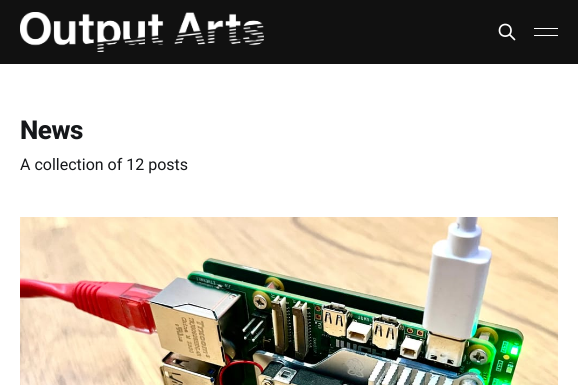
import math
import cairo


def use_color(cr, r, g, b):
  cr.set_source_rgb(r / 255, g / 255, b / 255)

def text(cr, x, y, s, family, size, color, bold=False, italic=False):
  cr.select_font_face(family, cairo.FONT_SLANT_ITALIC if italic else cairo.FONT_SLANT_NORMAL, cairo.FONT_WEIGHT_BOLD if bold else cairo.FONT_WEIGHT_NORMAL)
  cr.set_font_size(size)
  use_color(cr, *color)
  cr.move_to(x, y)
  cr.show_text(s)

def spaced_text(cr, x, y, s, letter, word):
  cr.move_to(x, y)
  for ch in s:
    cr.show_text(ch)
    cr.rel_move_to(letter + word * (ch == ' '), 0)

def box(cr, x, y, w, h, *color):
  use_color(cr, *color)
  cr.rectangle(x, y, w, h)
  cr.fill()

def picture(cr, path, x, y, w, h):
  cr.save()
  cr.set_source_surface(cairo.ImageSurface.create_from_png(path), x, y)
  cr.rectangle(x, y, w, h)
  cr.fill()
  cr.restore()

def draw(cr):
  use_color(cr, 255, 255, 255)
  cr.paint()
  box(cr, 0, 0, 578, 64, 17, 17, 17)
  picture(cr, "img_01.png", 20, 12, 244, 40)
  cr.new_path()
  cr.move_to(514.5, 39.5)
  cr.line_to(509.5, 34.5)
  cr.move_to(511, 30.5)
  cr.curve_to(511, 38, 499.5, 38, 499.5, 30.5)
  cr.curve_to(499.5, 22.5, 511, 22.5, 511, 30.5)
  cr.close_path()
  use_color(cr, 255, 255, 255)
  cr.set_line_width(1.7)
  cr.set_line_cap(cairo.LINE_CAP_ROUND)
  cr.set_line_join(cairo.LINE_JOIN_ROUND)
  cr.stroke()
  box(cr, 534, 28, 24, 1, 255, 255, 255)
  box(cr, 534, 35, 24, 1, 255, 255, 255)
  picture(cr, "img_02.png", 20, 217, 538, 168)
  cr.select_font_face("Roboto ExtraBold")
  cr.set_font_size(26)
  use_color(cr, 21, 23, 26)
  spaced_text(cr, 20, 139, "News", -0.5, 0)
  text(cr, 20, 170, "A collection of 12 posts", "Roboto", 16, (21, 23, 26))


surface = cairo.ImageSurface(cairo.FORMAT_RGB24, 578, 385)
cr = cairo.Context(surface)
options = cairo.FontOptions()
options.set_hint_metrics(cairo.HINT_METRICS_OFF)
options.set_hint_style(cairo.HINT_STYLE_NONE)
cr.set_font_options(options)
cr.set_miter_limit(4)
draw(cr)
surface.write_to_png("out.png")
